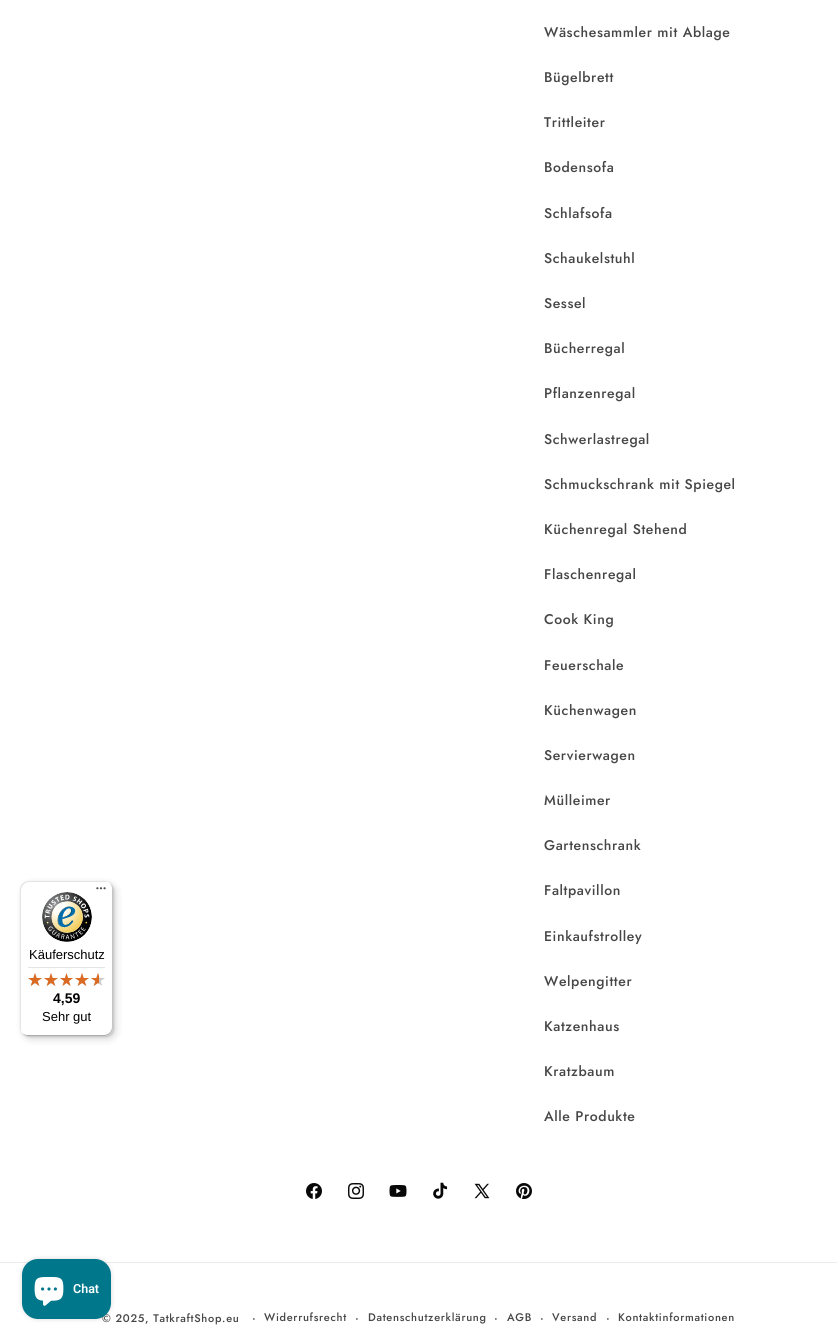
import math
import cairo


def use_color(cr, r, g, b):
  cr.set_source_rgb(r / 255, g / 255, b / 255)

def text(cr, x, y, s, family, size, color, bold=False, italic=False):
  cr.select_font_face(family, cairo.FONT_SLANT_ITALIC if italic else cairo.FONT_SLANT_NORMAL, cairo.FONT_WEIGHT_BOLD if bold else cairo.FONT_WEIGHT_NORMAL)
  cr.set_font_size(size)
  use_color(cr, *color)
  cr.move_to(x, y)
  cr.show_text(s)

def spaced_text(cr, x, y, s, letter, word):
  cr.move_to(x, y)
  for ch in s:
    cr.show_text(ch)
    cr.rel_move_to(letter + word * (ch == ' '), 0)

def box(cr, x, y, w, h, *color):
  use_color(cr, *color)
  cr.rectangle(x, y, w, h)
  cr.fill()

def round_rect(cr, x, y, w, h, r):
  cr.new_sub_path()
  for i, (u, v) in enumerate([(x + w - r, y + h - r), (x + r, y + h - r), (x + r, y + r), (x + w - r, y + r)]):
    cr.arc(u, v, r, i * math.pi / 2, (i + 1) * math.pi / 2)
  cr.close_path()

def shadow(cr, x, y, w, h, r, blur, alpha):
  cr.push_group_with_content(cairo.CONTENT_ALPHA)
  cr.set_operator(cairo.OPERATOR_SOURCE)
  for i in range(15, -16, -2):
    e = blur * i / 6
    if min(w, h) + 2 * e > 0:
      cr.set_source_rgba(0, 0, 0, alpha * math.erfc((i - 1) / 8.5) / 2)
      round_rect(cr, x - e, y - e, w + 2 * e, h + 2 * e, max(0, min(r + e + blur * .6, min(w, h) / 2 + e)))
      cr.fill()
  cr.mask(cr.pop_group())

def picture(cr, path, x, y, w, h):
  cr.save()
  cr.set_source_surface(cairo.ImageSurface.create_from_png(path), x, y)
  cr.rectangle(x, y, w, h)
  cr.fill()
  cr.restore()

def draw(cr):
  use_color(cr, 255, 255, 255)
  cr.paint()
  use_color(cr, 0, 0, 0)
  shadow(cr, 23, 884, 93, 155, 8, 4, 0.15)
  shadow(cr, 21, 882, 93, 155, 8, 1, 0.15)
  use_color(cr, 255, 255, 255)
  round_rect(cr, 20, 881, 93, 155, 8)
  cr.fill()
  use_color(cr, 229, 229, 229)
  cr.new_path()
  cr.move_to(29, 882)
  cr.line_to(106, 882)
  cr.curve_to(108, 882, 110, 883, 112, 885)
  cr.curve_to(110, 883, 108, 881, 105, 881)
  cr.line_to(28, 881)
  cr.curve_to(24, 881, 20, 885, 20, 889)
  cr.line_to(20, 1028)
  cr.curve_to(20, 1031, 22, 1033, 24, 1035)
  cr.curve_to(22, 1033, 21, 1031, 21, 1029)
  cr.line_to(21, 890)
  cr.curve_to(21, 886, 25, 882, 29, 882)
  cr.close_path()
  cr.fill()
  use_color(cr, 204, 204, 204)
  cr.new_path()
  cr.move_to(21, 1032)
  cr.curve_to(23, 1034, 25, 1036, 28, 1036)
  cr.line_to(105, 1036)
  cr.curve_to(109, 1036, 113, 1032, 113, 1028)
  cr.line_to(113, 889)
  cr.curve_to(113, 886, 111, 884, 109, 882)
  cr.curve_to(111, 884, 112, 886, 112, 888)
  cr.line_to(112, 1027)
  cr.curve_to(112, 1031, 108, 1035, 104, 1035)
  cr.line_to(27, 1035)
  cr.curve_to(25, 1035, 23, 1034, 21, 1032)
  cr.close_path()
  cr.fill()
  cr.set_source_rgba(0.196, 0.196, 0.196, 0.2)
  cr.new_path()
  cr.move_to(22, 1033)
  cr.curve_to(23, 1035, 26, 1036, 28, 1036)
  cr.line_to(105, 1036)
  cr.curve_to(109, 1036, 113, 1032, 113, 1028)
  cr.line_to(113, 889)
  cr.curve_to(113, 887, 112, 884, 110, 883)
  cr.curve_to(111, 884, 112, 886, 112, 888)
  cr.line_to(112, 1027)
  cr.curve_to(112, 1032, 109, 1035, 104, 1035)
  cr.line_to(27, 1035)
  cr.curve_to(25, 1035, 23, 1034, 22, 1033)
  cr.close_path()
  cr.fill()
  cr.set_source_rgba(1, 1, 1, 0.3)
  cr.new_path()
  cr.move_to(104, 1036)
  cr.line_to(105, 1036)
  cr.curve_to(109, 1036, 113, 1032, 113, 1028)
  cr.line_to(113, 889)
  cr.curve_to(113, 887, 112, 884, 110, 883)
  cr.curve_to(111, 884, 112, 886, 112, 888)
  cr.line_to(112, 1028)
  cr.curve_to(112, 1032, 109, 1036, 104, 1036)
  cr.close_path()
  cr.fill()
  picture(cr, "img_01.png", 96, 887, 10, 3)
  picture(cr, "img_02.png", 42, 892, 50, 50)
  box(cr, 28, 967, 77, 1, 229, 229, 229)
  picture(cr, "img_03.png", 28, 973, 14, 13)
  picture(cr, "img_03.png", 44, 973, 14, 13)
  picture(cr, "img_04.png", 60, 973, 13, 13)
  picture(cr, "img_03.png", 75, 973, 14, 13)
  picture(cr, "img_03.png", 91, 973, 14, 13)
  picture(cr, "img_05.png", 28, 973, 14, 13)
  picture(cr, "img_05.png", 44, 973, 14, 13)
  picture(cr, "img_06.png", 60, 973, 13, 13)
  picture(cr, "img_05.png", 75, 973, 14, 13)
  picture(cr, "img_07.png", 91, 973, 8, 13)
  picture(cr, "img_08.png", 306, 1183, 16, 16)
  picture(cr, "img_09.png", 348, 1183, 16, 16)
  picture(cr, "img_10.png", 389, 1185, 18, 12)
  picture(cr, "img_11.png", 433, 1182, 15, 17)
  picture(cr, "img_12.png", 474, 1183, 16, 16)
  picture(cr, "img_13.png", 516, 1183, 16, 16)
  box(cr, 0, 1262, 837, 1, 235, 235, 235)
  use_color(cr, 0, 0, 0)
  shadow(cr, 22, 1259, 89, 60, 16, 2.5, 0.15)
  text(cr, 29, 959, "Käuferschutz", "Liberation Sans", 13, (0, 0, 0))
  text(cr, 53, 1003, "4,59", "Liberation Sans", 14, (0, 0, 0), bold=True)
  text(cr, 42, 1021, "Sehr gut", "Liberation Sans", 13, (0, 0, 0))
  cr.select_font_face("Jost Medium")
  cr.set_font_size(14)
  use_color(cr, 70, 70, 70)
  spaced_text(cr, 544, 37, "Wäschesammler mit Ablage", 0.6, 0)
  spaced_text(cr, 544, 82, "Bügelbrett", 0.6, 0)
  spaced_text(cr, 544, 127, "Trittleiter", 0.6, 0)
  spaced_text(cr, 544, 172, "Bodensofa", 0.6, 0)
  spaced_text(cr, 544, 218, "Schlafsofa", 0.6, 0)
  spaced_text(cr, 544, 263, "Schaukelstuhl", 0.6, 0)
  spaced_text(cr, 544, 308, "Sessel", 0.6, 0)
  spaced_text(cr, 544, 353, "Bücherregal", 0.6, 0)
  spaced_text(cr, 544, 398, "Pflanzenregal", 0.6, 0)
  spaced_text(cr, 544, 444, "Schwerlastregal", 0.6, 0)
  spaced_text(cr, 544, 489, "Schmuckschrank mit Spiegel", 0.6, 0)
  spaced_text(cr, 544, 534, "Küchenregal Stehend", 0.6, 0)
  spaced_text(cr, 544, 579, "Flaschenregal", 0.6, 0)
  spaced_text(cr, 544, 624, "Cook King", 0.6, 0)
  spaced_text(cr, 544, 670, "Feuerschale", 0.6, 0)
  spaced_text(cr, 544, 715, "Küchenwagen", 0.6, 0)
  spaced_text(cr, 544, 760, "Servierwagen", 0.6, 0)
  spaced_text(cr, 544, 805, "Mülleimer", 0.6, 0)
  spaced_text(cr, 544, 850, "Gartenschrank", 0.6, 0)
  spaced_text(cr, 544, 895, "Faltpavillon", 0.6, 0)
  spaced_text(cr, 544, 941, "Einkaufstrolley", 0.6, 0)
  spaced_text(cr, 544, 986, "Welpengitter", 0.6, 0)
  spaced_text(cr, 544, 1031, "Katzenhaus", 0.6, 0)
  spaced_text(cr, 544, 1076, "Kratzbaum", 0.6, 0)
  spaced_text(cr, 544, 1121, "Alle Produkte", 0.6, 0)
  cr.set_font_size(11)
  spaced_text(cr, 102, 1322, "© 2025, TatkraftShop.eu", 0.7, 0)
  cr.set_font_size(12)
  spaced_text(cr, 252, 1322, "·", 0.7, 0)
  cr.set_font_size(11)
  spaced_text(cr, 264, 1321, "Widerrufsrecht", 0.7, 0)
  cr.set_font_size(12)
  spaced_text(cr, 355, 1322, "·", 0.7, 0)
  cr.set_font_size(11)
  spaced_text(cr, 368, 1321, "Datenschutzerklärung", 0.7, 0)
  cr.set_font_size(12)
  spaced_text(cr, 494, 1322, "·", 0.7, 0)
  cr.set_font_size(11)
  spaced_text(cr, 507, 1321, "AGB", 0.7, 0)
  cr.set_font_size(12)
  spaced_text(cr, 540, 1322, "·", 0.7, 0)
  cr.set_font_size(11)
  spaced_text(cr, 552, 1321, "Versand", 0.7, 0)
  cr.set_font_size(12)
  spaced_text(cr, 606, 1322, "·", 0.7, 0)
  cr.set_font_size(11)
  spaced_text(cr, 618, 1321, "Kontaktinformationen", 0.7, 0)
  use_color(cr, 0, 119, 139)
  round_rect(cr, 22, 1259, 89, 60, 16)
  cr.fill()
  picture(cr, "img_14.png", 34, 1277, 30, 29)
  text(cr, 73, 1293, "Chat", "Roboto SemiBold", 12.5, (255, 255, 255))


surface = cairo.ImageSurface(cairo.FORMAT_RGB24, 837, 1340)
cr = cairo.Context(surface)
options = cairo.FontOptions()
options.set_hint_metrics(cairo.HINT_METRICS_OFF)
options.set_hint_style(cairo.HINT_STYLE_NONE)
cr.set_font_options(options)
cr.set_miter_limit(4)
draw(cr)
surface.write_to_png("out.png")
